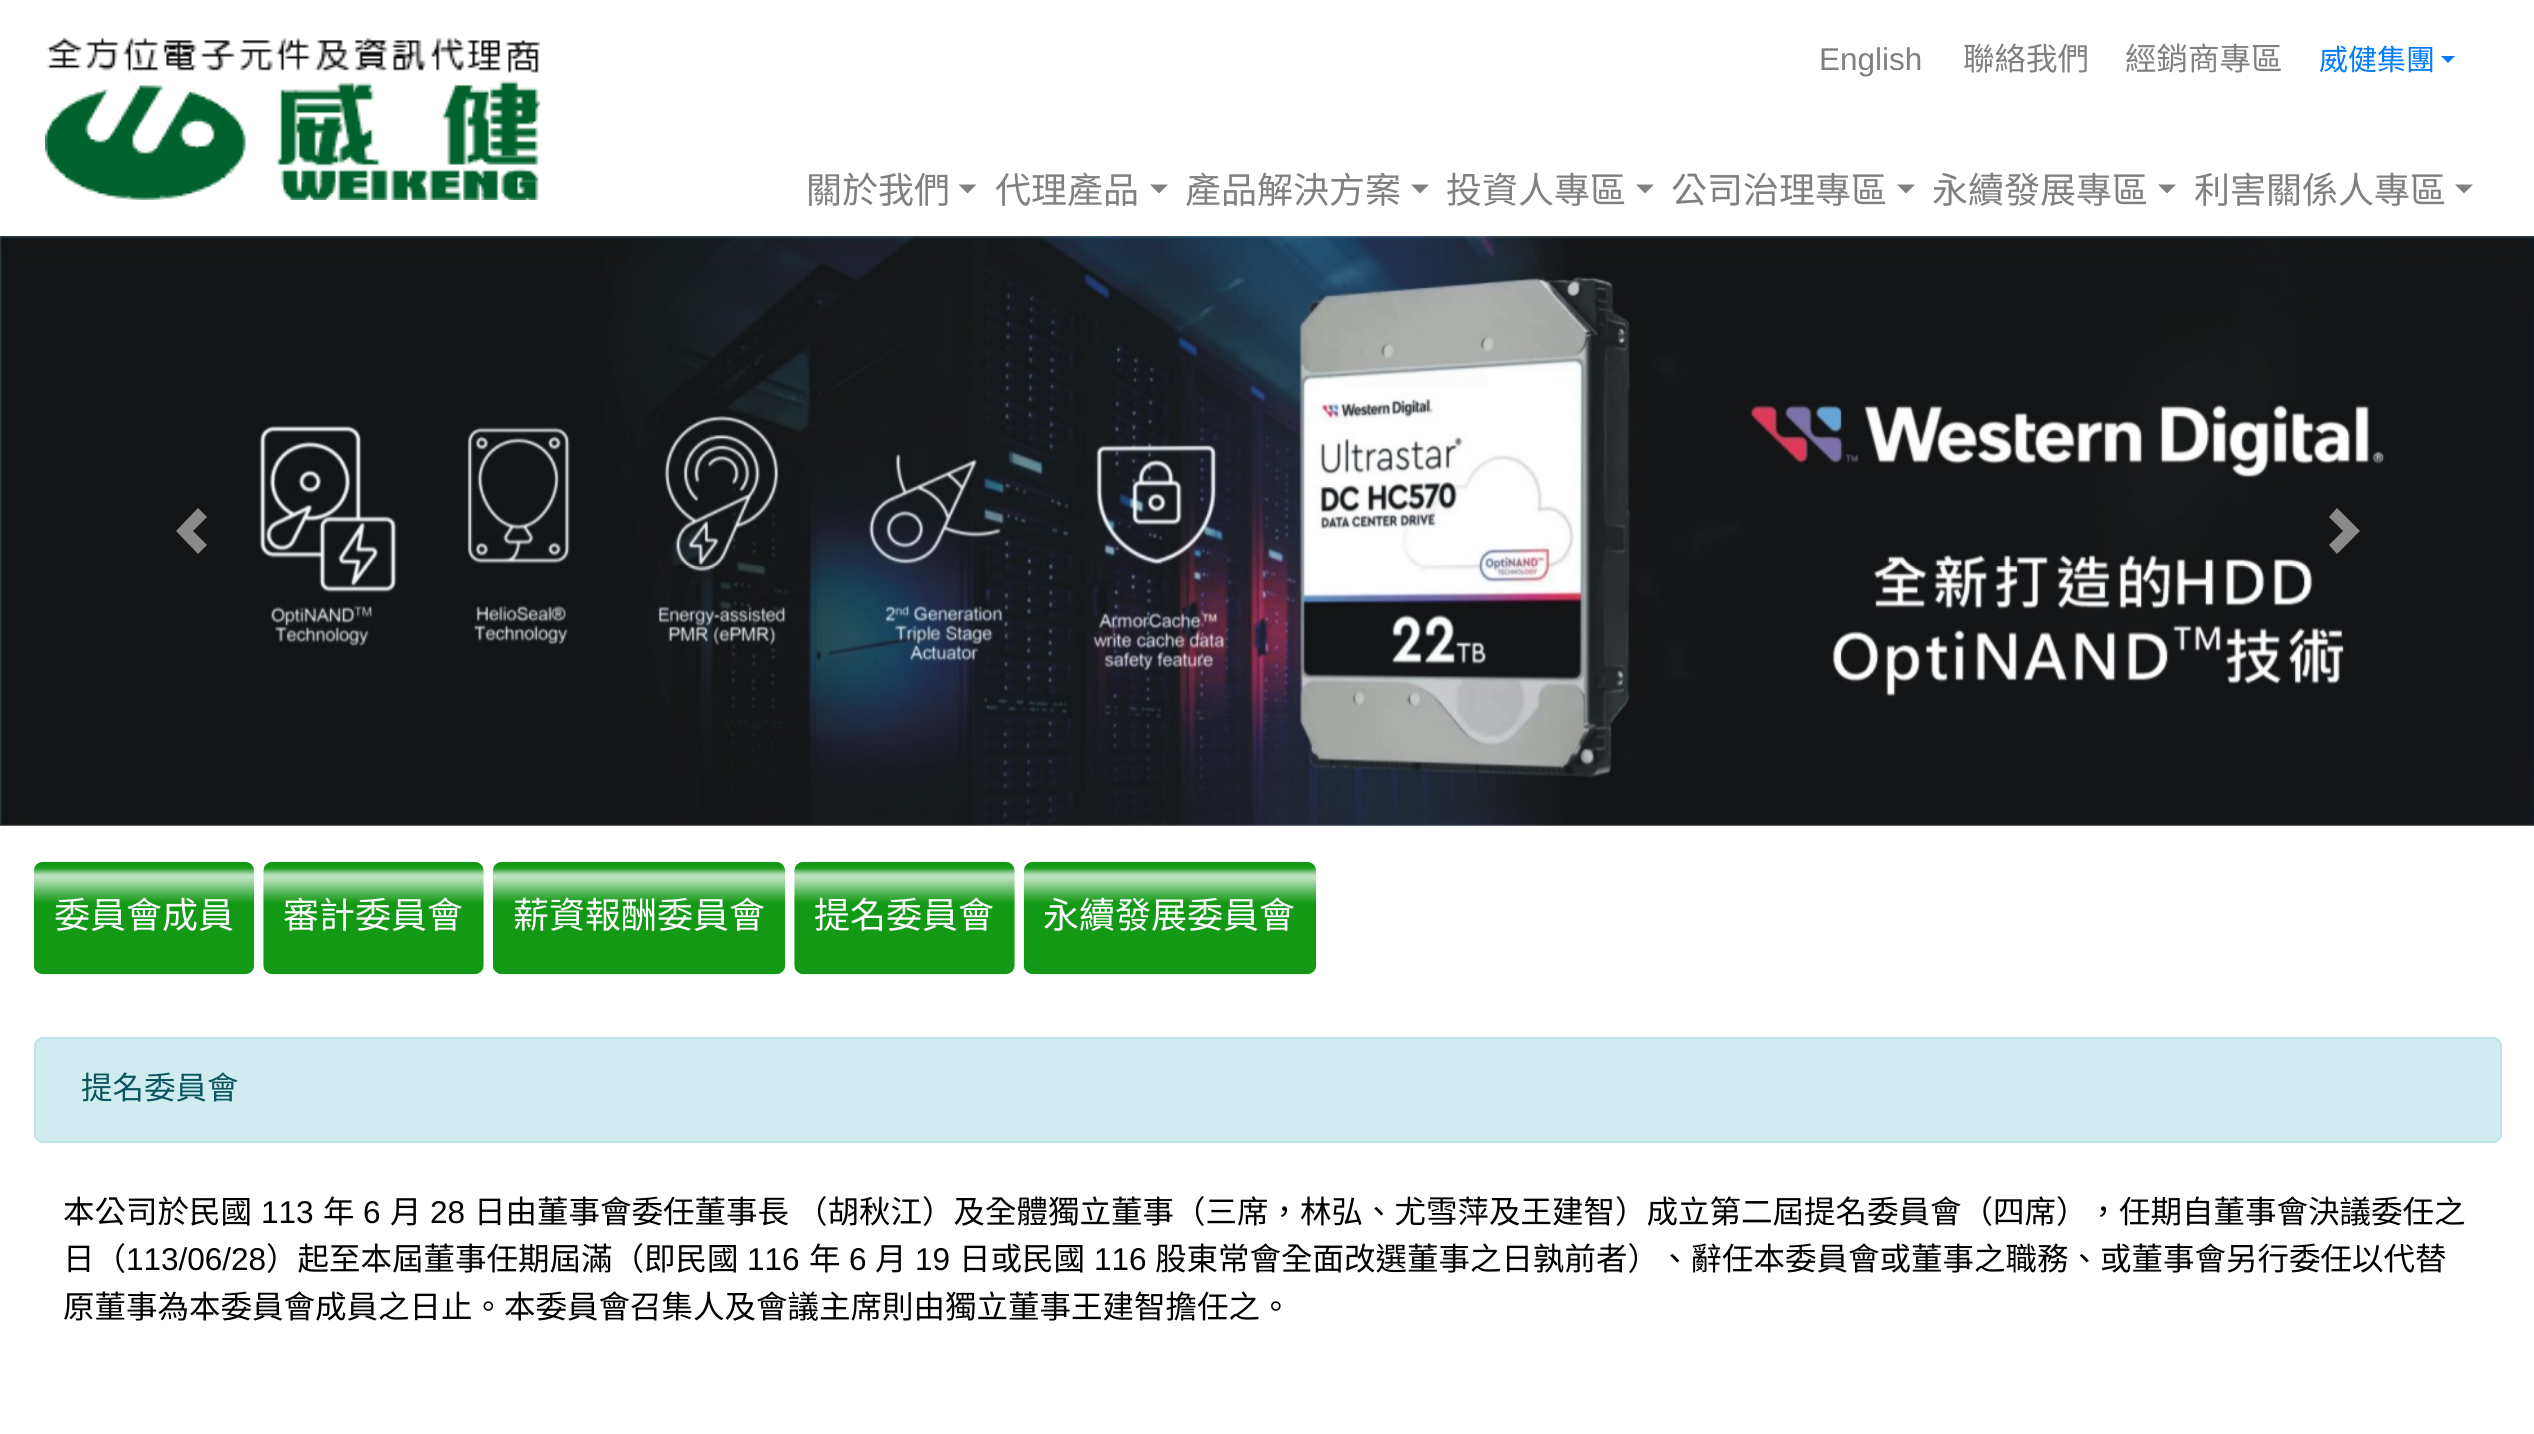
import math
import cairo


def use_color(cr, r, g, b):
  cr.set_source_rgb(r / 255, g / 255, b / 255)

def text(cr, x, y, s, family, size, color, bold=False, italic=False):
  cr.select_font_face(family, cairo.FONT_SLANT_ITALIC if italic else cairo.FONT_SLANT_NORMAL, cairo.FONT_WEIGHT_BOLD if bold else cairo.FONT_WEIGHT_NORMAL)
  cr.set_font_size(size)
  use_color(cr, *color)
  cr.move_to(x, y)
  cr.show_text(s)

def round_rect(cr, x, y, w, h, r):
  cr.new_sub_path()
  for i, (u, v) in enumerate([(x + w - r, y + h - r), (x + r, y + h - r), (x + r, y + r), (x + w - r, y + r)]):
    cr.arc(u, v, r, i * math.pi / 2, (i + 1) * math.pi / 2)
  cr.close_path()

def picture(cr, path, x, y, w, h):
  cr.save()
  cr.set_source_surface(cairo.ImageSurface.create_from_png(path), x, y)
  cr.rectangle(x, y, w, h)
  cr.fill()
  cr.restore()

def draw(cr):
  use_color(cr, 255, 255, 255)
  cr.paint()
  picture(cr, "img_01.png", 45, 37, 495, 163)
  use_color(cr, 0, 123, 255)
  cr.new_path()
  cr.move_to(2441, 56)
  cr.line_to(2455, 56)
  cr.line_to(2448, 63)
  cr.close_path()
  cr.fill()
  use_color(cr, 128, 128, 128)
  cr.new_path()
  cr.move_to(958.5, 184.5)
  cr.line_to(976.5, 184.5)
  cr.line_to(967.5, 193.5)
  cr.close_path()
  cr.fill()
  cr.new_path()
  cr.move_to(1150, 184.5)
  cr.line_to(1168, 184.5)
  cr.line_to(1159, 193.5)
  cr.close_path()
  cr.fill()
  cr.new_path()
  cr.move_to(1411, 184.5)
  cr.line_to(1429, 184.5)
  cr.line_to(1420, 193.5)
  cr.close_path()
  cr.fill()
  cr.new_path()
  cr.move_to(1636, 184.5)
  cr.line_to(1654, 184.5)
  cr.line_to(1645, 193.5)
  cr.close_path()
  cr.fill()
  cr.new_path()
  cr.move_to(1897, 184.5)
  cr.line_to(1915, 184.5)
  cr.line_to(1906, 193.5)
  cr.close_path()
  cr.fill()
  cr.new_path()
  cr.move_to(2158, 184.5)
  cr.line_to(2176, 184.5)
  cr.line_to(2167, 193.5)
  cr.close_path()
  cr.fill()
  cr.new_path()
  cr.move_to(2455, 184.5)
  cr.line_to(2473, 184.5)
  cr.line_to(2464, 193.5)
  cr.close_path()
  cr.fill()
  picture(cr, "img_02.png", 0, 236, 2534, 590)
  use_color(cr, 138, 138, 139)
  cr.new_path()
  cr.move_to(198, 508)
  cr.line_to(176, 531)
  cr.line_to(198, 554)
  cr.line_to(207, 545)
  cr.line_to(193, 531)
  cr.line_to(207, 517)
  cr.close_path()
  cr.fill()
  cr.new_path()
  cr.move_to(2337, 508)
  cr.line_to(2329, 517)
  cr.line_to(2343, 531)
  cr.line_to(2329, 545)
  cr.line_to(2337, 554)
  cr.line_to(2360, 531)
  cr.close_path()
  cr.fill()
  picture(cr, "img_03.png", 33, 861, 222, 114)
  picture(cr, "img_04.png", 263, 861, 221, 114)
  picture(cr, "img_05.png", 492, 861, 294, 114)
  picture(cr, "img_04.png", 794, 861, 221, 114)
  picture(cr, "img_05.png", 1023, 861, 294, 114)
  use_color(cr, 209, 236, 241)
  round_rect(cr, 35, 1038, 2466, 104, 8)
  cr.fill_preserve()
  use_color(cr, 190, 229, 235)
  cr.stroke()
  text(cr, 1819, 70, "English", "Liberation Sans", 31.5, (128, 128, 128))
  text(cr, 1963, 70, "聯絡我們", "Noto Sans CJK TC", 31.5, (128, 128, 128))
  text(cr, 2125, 70, "經銷商專區", "Noto Sans CJK TC", 31.5, (128, 128, 128))
  text(cr, 2319, 70, "威健集團", "Noto Sans CJK TC", 29, (0, 123, 255))
  text(cr, 806, 203, "關於我們", "Noto Sans CJK TC", 36, (128, 128, 128))
  text(cr, 995, 203, "代理產品", "Noto Sans CJK TC", 36, (128, 128, 128))
  text(cr, 1185, 203, "產品解決方案", "Noto Sans CJK TC", 36, (128, 128, 128))
  text(cr, 1446, 203, "投資人專區", "Noto Sans CJK TC", 36, (128, 128, 128))
  text(cr, 1671, 203, "公司治理專區", "Noto Sans CJK TC", 36, (128, 128, 128))
  text(cr, 1932, 203, "永續發展專區", "Noto Sans CJK TC", 36, (128, 128, 128))
  text(cr, 2194, 203, "利害關係人專區", "Noto Sans CJK TC", 36, (128, 128, 128))
  text(cr, 54, 928, "委員會成員", "Noto Sans CJK TC", 36, (255, 255, 255))
  text(cr, 283, 928, "審計委員會", "Noto Sans CJK TC", 36, (255, 255, 255))
  text(cr, 513, 928, "薪資報酬委員會", "Noto Sans CJK TC", 36, (255, 255, 255))
  text(cr, 814, 928, "提名委員會", "Noto Sans CJK TC", 36, (255, 255, 255))
  text(cr, 1043, 928, "永續發展委員會", "Noto Sans CJK TC", 36, (255, 255, 255))
  text(cr, 81, 1099, "提名委員會", "Noto Sans CJK TC", 31.5, (12, 84, 96))
  text(cr, 63, 1223, "本公司於民國", "Noto Sans CJK TC", 31.5, (0, 0, 0))
  text(cr, 261, 1223, "113", "Liberation Sans", 31.5, (0, 0, 0))
  text(cr, 323, 1223, "年", "Noto Sans CJK TC", 31.5, (0, 0, 0))
  text(cr, 363, 1223, "6", "Liberation Sans", 31.5, (0, 0, 0))
  text(cr, 390, 1223, "月", "Noto Sans CJK TC", 31.5, (0, 0, 0))
  text(cr, 430, 1223, "28", "Liberation Sans", 31.5, (0, 0, 0))
  text(cr, 474, 1223, "日由董事會委任董事長 （胡秋江）及全體獨立董事（三席，林弘、尤雪萍及王建智）成立第二屆提名委員會（四席），任期自董事會決議委任之", "Noto Sans CJK TC", 31.5, (0, 0, 0))
  text(cr, 63, 1270, "日（", "Noto Sans CJK TC", 31.5, (0, 0, 0))
  text(cr, 126, 1270, "113/06/28", "Liberation Sans", 31.5, (0, 0, 0))
  text(cr, 266, 1270, "）起至本屆董事任期屆滿（即民國", "Noto Sans CJK TC", 31.5, (0, 0, 0))
  text(cr, 747, 1270, "116", "Liberation Sans", 31.5, (0, 0, 0))
  text(cr, 809, 1270, "年", "Noto Sans CJK TC", 31.5, (0, 0, 0))
  text(cr, 849, 1270, "6", "Liberation Sans", 31.5, (0, 0, 0))
  text(cr, 875, 1270, "月", "Noto Sans CJK TC", 31.5, (0, 0, 0))
  text(cr, 915, 1270, "19", "Liberation Sans", 31.5, (0, 0, 0))
  text(cr, 959, 1270, "日或民國", "Noto Sans CJK TC", 31.5, (0, 0, 0))
  text(cr, 1094, 1270, "116", "Liberation Sans", 31.5, (0, 0, 0))
  text(cr, 1155, 1270, "股東常會全面改選董事之日孰前者）、辭任本委員會或董事之職務、或董事會另行委任以代替", "Noto Sans CJK TC", 31.5, (0, 0, 0))
  text(cr, 63, 1318, "原董事為本委員會成員之日止。本委員會召集人及會議主席則由獨立董事王建智擔任之。", "Noto Sans CJK TC", 31.5, (0, 0, 0))


surface = cairo.ImageSurface(cairo.FORMAT_RGB24, 2534, 1434)
cr = cairo.Context(surface)
options = cairo.FontOptions()
options.set_hint_metrics(cairo.HINT_METRICS_OFF)
options.set_hint_style(cairo.HINT_STYLE_NONE)
cr.set_font_options(options)
cr.set_miter_limit(4)
draw(cr)
surface.write_to_png("out.png")
